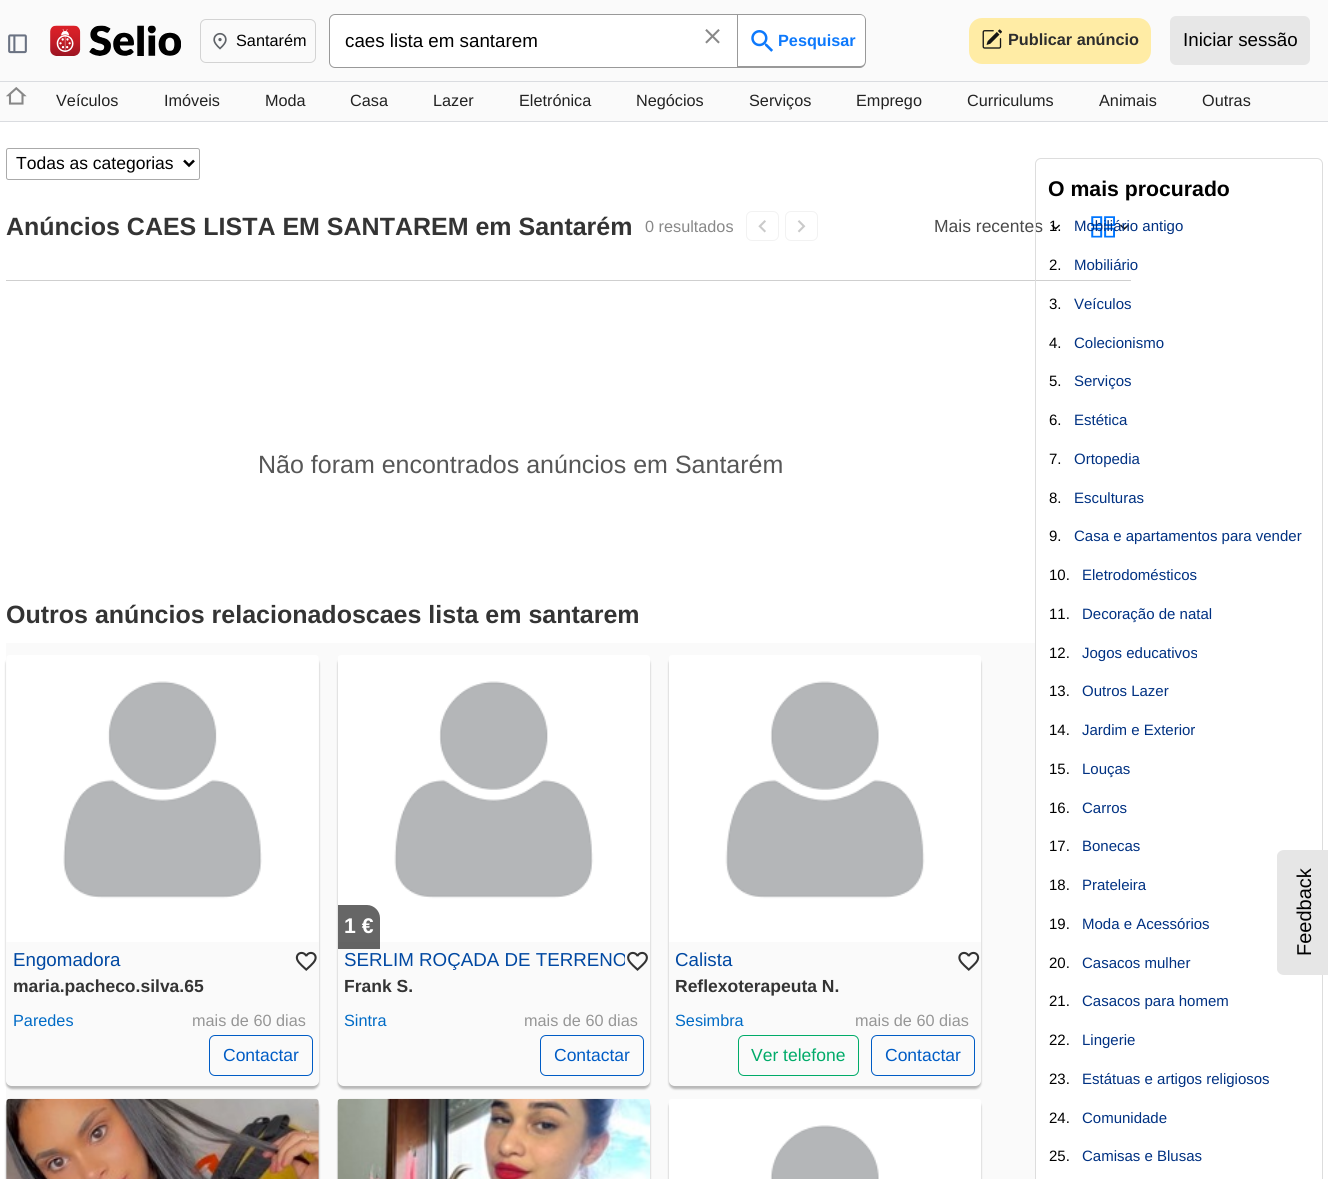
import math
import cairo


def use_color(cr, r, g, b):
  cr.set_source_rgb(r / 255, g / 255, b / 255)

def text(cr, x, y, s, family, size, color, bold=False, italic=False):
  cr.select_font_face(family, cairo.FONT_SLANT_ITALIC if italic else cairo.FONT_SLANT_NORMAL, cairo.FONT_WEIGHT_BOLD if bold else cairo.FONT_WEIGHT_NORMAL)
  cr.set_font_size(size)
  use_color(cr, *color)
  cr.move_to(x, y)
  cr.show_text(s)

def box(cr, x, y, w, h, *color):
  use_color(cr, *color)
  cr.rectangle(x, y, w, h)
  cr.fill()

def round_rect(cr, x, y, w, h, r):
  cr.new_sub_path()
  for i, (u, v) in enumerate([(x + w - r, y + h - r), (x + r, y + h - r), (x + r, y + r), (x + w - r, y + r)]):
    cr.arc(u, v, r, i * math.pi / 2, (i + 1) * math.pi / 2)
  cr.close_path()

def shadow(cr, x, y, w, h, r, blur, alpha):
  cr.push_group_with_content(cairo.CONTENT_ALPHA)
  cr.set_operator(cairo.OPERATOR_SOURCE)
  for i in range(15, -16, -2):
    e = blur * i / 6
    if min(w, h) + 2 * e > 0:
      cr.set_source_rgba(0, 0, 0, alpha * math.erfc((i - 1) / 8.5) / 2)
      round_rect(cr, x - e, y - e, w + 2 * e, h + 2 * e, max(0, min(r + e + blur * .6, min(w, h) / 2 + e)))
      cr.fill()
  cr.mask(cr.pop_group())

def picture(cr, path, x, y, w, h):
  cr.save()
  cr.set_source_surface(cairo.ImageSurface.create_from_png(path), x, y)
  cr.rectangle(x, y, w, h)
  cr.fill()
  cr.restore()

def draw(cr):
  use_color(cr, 255, 255, 255)
  cr.paint()
  box(cr, 0, 0, 1328, 81, 250, 250, 250)
  box(cr, 0, 81, 1328, 1, 218, 220, 224)
  picture(cr, "img_01.png", 8, 34, 19, 20)
  picture(cr, "img_02.png", 50, 25, 131, 31)
  round_rect(cr, 200.5, 19.5, 115, 43, 5.5)
  use_color(cr, 211, 211, 211)
  cr.set_line_width(1)
  cr.stroke()
  picture(cr, "img_03.png", 213, 32, 14, 18)
  use_color(cr, 255, 255, 255)
  cr.new_path()
  cr.move_to(335, 14.5)
  cr.line_to(737.5, 14.5)
  cr.line_to(737.5, 67.5)
  cr.line_to(335, 67.5)
  cr.curve_to(332, 67.5, 329.5, 65, 329.5, 62)
  cr.line_to(329.5, 20)
  cr.curve_to(329.5, 17, 332, 14.5, 335, 14.5)
  cr.close_path()
  cr.fill_preserve()
  use_color(cr, 153, 153, 153)
  cr.stroke()
  picture(cr, "img_04.png", 705, 29, 15, 15)
  use_color(cr, 255, 255, 255)
  cr.new_path()
  cr.move_to(738, 14)
  cr.line_to(860, 14)
  cr.curve_to(863.5, 14, 866, 16.5, 866, 20)
  cr.line_to(866, 62)
  cr.curve_to(866, 65.5, 863.5, 68, 860, 68)
  cr.line_to(738, 68)
  cr.close_path()
  cr.fill()
  use_color(cr, 153, 153, 153)
  cr.set_fill_rule(cairo.FILL_RULE_EVEN_ODD)
  cr.new_path()
  cr.move_to(738, 14)
  cr.line_to(860, 14)
  cr.curve_to(863, 14, 866, 17, 866, 20)
  cr.line_to(866, 61)
  cr.curve_to(866, 65, 863, 68, 860, 68)
  cr.line_to(738, 68)
  cr.close_path()
  cr.move_to(738, 15)
  cr.line_to(860, 15)
  cr.curve_to(863, 15, 865, 17, 865, 20)
  cr.line_to(865, 61)
  cr.curve_to(865, 64, 863, 66, 860, 66)
  cr.line_to(738, 66)
  cr.close_path()
  cr.fill()
  picture(cr, "img_05.png", 751, 30, 22, 22)
  use_color(cr, 255, 236, 165)
  round_rect(cr, 969, 18, 182, 46, 13)
  cr.fill()
  picture(cr, "img_06.png", 982, 29, 20, 20)
  use_color(cr, 231, 231, 231)
  round_rect(cr, 1170, 16, 140, 49, 6)
  cr.fill()
  box(cr, 0, 82, 1328, 39, 250, 250, 250)
  box(cr, 0, 121, 1328, 1, 218, 220, 224)
  picture(cr, "img_07.png", 6, 87, 21, 18)
  round_rect(cr, 6.5, 148.5, 193, 31, 2)
  use_color(cr, 170, 170, 170)
  cr.stroke()
  cr.new_path()
  cr.move_to(184, 160.5)
  cr.line_to(189, 165.5)
  cr.line_to(194, 160.5)
  use_color(cr, 0, 0, 0)
  cr.set_line_width(2.5)
  cr.stroke()
  round_rect(cr, 746.5, 211.5, 32, 29, 5.5)
  use_color(cr, 242, 242, 242)
  cr.set_line_width(1)
  cr.stroke()
  picture(cr, "img_08.png", 758, 220, 8, 13)
  round_rect(cr, 785.5, 211.5, 32, 29, 5.5)
  cr.stroke()
  picture(cr, "img_09.png", 797, 220, 9, 13)
  picture(cr, "img_10.png", 1051, 224, 9, 6)
  picture(cr, "img_11.png", 1120, 224, 9, 6)
  picture(cr, "img_12.png", 1091, 216, 24, 22)
  box(cr, 6, 280, 1125, 1, 207, 207, 207)
  box(cr, 6, 643, 1029, 536, 250, 250, 250)
  cr.save()
  cr.new_path()
  cr.move_to(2, 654)
  cr.line_to(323, 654)
  cr.line_to(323, 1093)
  cr.line_to(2, 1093)
  cr.close_path()
  cr.move_to(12, 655)
  cr.line_to(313, 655)
  cr.curve_to(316.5, 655, 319, 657.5, 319, 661)
  cr.line_to(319, 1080)
  cr.curve_to(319, 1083.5, 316.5, 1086, 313, 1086)
  cr.line_to(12, 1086)
  cr.curve_to(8.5, 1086, 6, 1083.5, 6, 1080)
  cr.line_to(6, 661)
  cr.curve_to(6, 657.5, 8.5, 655, 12, 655)
  cr.close_path()
  cr.clip()
  use_color(cr, 0, 0, 0)
  shadow(cr, 6, 658, 313, 431, 6, 1, 0.27)
  cr.restore()
  picture(cr, "img_13.png", 6, 655, 313, 287)
  picture(cr, "img_14.png", 295, 951, 22, 20)
  round_rect(cr, 209.5, 1035.5, 103, 40, 5.5)
  use_color(cr, 0, 92, 197)
  cr.stroke()
  cr.save()
  cr.new_path()
  cr.move_to(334, 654)
  cr.line_to(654, 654)
  cr.line_to(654, 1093)
  cr.line_to(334, 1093)
  cr.close_path()
  cr.move_to(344, 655)
  cr.line_to(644, 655)
  cr.curve_to(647.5, 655, 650, 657.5, 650, 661)
  cr.line_to(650, 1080)
  cr.curve_to(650, 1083.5, 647.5, 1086, 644, 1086)
  cr.line_to(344, 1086)
  cr.curve_to(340.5, 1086, 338, 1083.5, 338, 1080)
  cr.line_to(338, 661)
  cr.curve_to(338, 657.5, 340.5, 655, 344, 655)
  cr.close_path()
  cr.clip()
  use_color(cr, 0, 0, 0)
  shadow(cr, 338, 658, 312, 431, 6, 1, 0.27)
  cr.restore()
  picture(cr, "img_15.png", 338, 655, 312, 287)
  cr.set_source_rgba(0, 0, 0, 0.6)
  cr.new_path()
  cr.move_to(338, 905)
  cr.line_to(367, 905)
  cr.curve_to(374, 905, 380, 911, 380, 918)
  cr.line_to(380, 949)
  cr.line_to(338, 949)
  cr.close_path()
  cr.fill()
  picture(cr, "img_16.png", 627, 951, 21, 20)
  round_rect(cr, 540.5, 1035.5, 103, 40, 5.5)
  use_color(cr, 0, 92, 197)
  cr.stroke()
  cr.save()
  cr.new_path()
  cr.move_to(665, 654)
  cr.line_to(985, 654)
  cr.line_to(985, 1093)
  cr.line_to(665, 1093)
  cr.close_path()
  cr.move_to(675, 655)
  cr.line_to(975, 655)
  cr.curve_to(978.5, 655, 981, 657.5, 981, 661)
  cr.line_to(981, 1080)
  cr.curve_to(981, 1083.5, 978.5, 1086, 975, 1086)
  cr.line_to(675, 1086)
  cr.curve_to(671.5, 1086, 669, 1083.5, 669, 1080)
  cr.line_to(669, 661)
  cr.curve_to(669, 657.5, 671.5, 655, 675, 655)
  cr.close_path()
  cr.clip()
  use_color(cr, 0, 0, 0)
  shadow(cr, 669, 658, 312, 431, 6, 1, 0.27)
  cr.restore()
  picture(cr, "img_17.png", 669, 655, 312, 287)
  picture(cr, "img_18.png", 958, 951, 22, 20)
  round_rect(cr, 738.5, 1035.5, 120, 40, 5.5)
  use_color(cr, 0, 171, 105)
  cr.stroke()
  round_rect(cr, 871.5, 1035.5, 103, 40, 5.5)
  use_color(cr, 0, 92, 197)
  cr.stroke()
  use_color(cr, 0, 0, 0)
  shadow(cr, 6, 1101, 313, 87, 6, 1, 0.27)
  picture(cr, "img_19.png", 6, 1098, 313, 81)
  shadow(cr, 338, 1101, 312, 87, 6, 1, 0.27)
  picture(cr, "img_20.png", 337, 1098, 313, 81)
  shadow(cr, 669, 1101, 312, 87, 6, 1, 0.27)
  picture(cr, "img_21.png", 669, 1099, 312, 80)
  text(cr, 236, 46, "Santarém", "Liberation Sans", 16.25, (0, 0, 0))
  text(cr, 345, 47, "caes lista em santarem", "Liberation Sans", 18.75, (0, 0, 0))
  text(cr, 778, 46, "Pesquisar", "Liberation Sans", 16.25, (13, 121, 252), bold=True)
  text(cr, 1008, 45, "Publicar anúncio", "Liberation Sans", 16.25, (45, 45, 45), bold=True)
  text(cr, 1183, 46, "Iniciar sessão", "Liberation Sans", 18.75, (0, 0, 0))
  text(cr, 56, 106, "Veículos", "Liberation Sans", 16.25, (34, 34, 34))
  text(cr, 164, 106, "Imóveis", "Liberation Sans", 16.25, (34, 34, 34))
  text(cr, 265, 106, "Moda", "Liberation Sans", 16.25, (34, 34, 34))
  text(cr, 350, 106, "Casa", "Liberation Sans", 16.25, (34, 34, 34))
  text(cr, 433, 106, "Lazer", "Liberation Sans", 16.25, (34, 34, 34))
  text(cr, 519, 106, "Eletrónica", "Liberation Sans", 16.25, (34, 34, 34))
  text(cr, 636, 106, "Negócios", "Liberation Sans", 16.25, (34, 34, 34))
  text(cr, 749, 106, "Serviços", "Liberation Sans", 16.25, (34, 34, 34))
  text(cr, 856, 106, "Emprego", "Liberation Sans", 16.25, (34, 34, 34))
  text(cr, 967, 106, "Curriculums", "Liberation Sans", 16.25, (34, 34, 34))
  text(cr, 1099, 106, "Animais", "Liberation Sans", 16.25, (34, 34, 34))
  text(cr, 1202, 106, "Outras", "Liberation Sans", 16.25, (34, 34, 34))
  text(cr, 16, 169, "Todas as categorias", "Liberation Sans", 17.5, (0, 0, 0))
  text(cr, 6, 235, "Anúncios CAES LISTA EM SANTAREM em Santarém", "Liberation Sans", 25, (52, 52, 52), bold=True)
  text(cr, 645, 232, "0 resultados", "Liberation Sans", 16.25, (136, 136, 136))
  text(cr, 934, 232, "Mais recentes", "Liberation Sans", 17.5, (74, 74, 74))
  text(cr, 258, 473, "Não foram encontrados anúncios em Santarém", "Liberation Sans", 25, (87, 87, 87))
  text(cr, 6, 623, "Outros anúncios relacionadoscaes lista em santarem", "Liberation Sans", 25, (52, 52, 52), bold=True)
  text(cr, 13, 966, "Engomadora", "Liberation Sans", 18.75, (0, 72, 162))
  text(cr, 13, 992, "maria.pacheco.silva.65", "Liberation Sans", 17.5, (52, 52, 52), bold=True)
  text(cr, 13, 1026, "Paredes", "Liberation Sans", 16.25, (0, 107, 198))
  text(cr, 192, 1026, "mais de 60 dias", "Liberation Sans", 16.25, (150, 150, 150))
  text(cr, 223, 1061, "Contactar", "Liberation Sans", 17.5, (0, 92, 197))
  text(cr, 344, 933, "1 €", "Liberation Sans", 21.25, (255, 255, 255), bold=True)
  cr.save()
  cr.set_fill_rule(cairo.FILL_RULE_WINDING)
  cr.rectangle(344, 949, 281, 22)
  cr.clip()
  text(cr, 344, 966, "SERLIM ROÇADA DE TERRENO", "Liberation Sans", 18.75, (0, 72, 162))
  cr.restore()
  text(cr, 344, 992, "Frank S.", "Liberation Sans", 17.5, (52, 52, 52), bold=True)
  text(cr, 344, 1026, "Sintra", "Liberation Sans", 16.25, (0, 107, 198))
  text(cr, 524, 1026, "mais de 60 dias", "Liberation Sans", 16.25, (150, 150, 150))
  text(cr, 554, 1061, "Contactar", "Liberation Sans", 17.5, (0, 92, 197))
  text(cr, 675, 966, "Calista", "Liberation Sans", 18.75, (0, 72, 162))
  text(cr, 675, 992, "Reflexoterapeuta N.", "Liberation Sans", 17.5, (52, 52, 52), bold=True)
  text(cr, 675, 1026, "Sesimbra", "Liberation Sans", 16.25, (0, 107, 198))
  text(cr, 855, 1026, "mais de 60 dias", "Liberation Sans", 16.25, (150, 150, 150))
  text(cr, 751, 1061, "Ver telefone", "Liberation Sans", 17.5, (0, 171, 105))
  text(cr, 885, 1061, "Contactar", "Liberation Sans", 17.5, (0, 92, 197))
  round_rect(cr, 1035.5, 158.5, 287, 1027, 5.5)
  use_color(cr, 221, 221, 221)
  cr.stroke()
  text(cr, 1048, 196, "O mais procurado", "Liberation Sans", 21.25, (0, 0, 0), bold=True)
  text(cr, 1049, 231, "1.", "Liberation Sans", 15, (0, 0, 0))
  text(cr, 1074, 231, "Mobiliário antigo", "Liberation Sans", 15, (0, 49, 130))
  text(cr, 1049, 270, "2.", "Liberation Sans", 15, (0, 0, 0))
  text(cr, 1074, 270, "Mobiliário", "Liberation Sans", 15, (0, 49, 130))
  text(cr, 1049, 309, "3.", "Liberation Sans", 15, (0, 0, 0))
  text(cr, 1074, 309, "Veículos", "Liberation Sans", 15, (0, 49, 130))
  text(cr, 1049, 348, "4.", "Liberation Sans", 15, (0, 0, 0))
  text(cr, 1074, 348, "Colecionismo", "Liberation Sans", 15, (0, 49, 130))
  text(cr, 1049, 386, "5.", "Liberation Sans", 15, (0, 0, 0))
  text(cr, 1074, 386, "Serviços", "Liberation Sans", 15, (0, 49, 130))
  text(cr, 1049, 425, "6.", "Liberation Sans", 15, (0, 0, 0))
  text(cr, 1074, 425, "Estética", "Liberation Sans", 15, (0, 49, 130))
  text(cr, 1049, 464, "7.", "Liberation Sans", 15, (0, 0, 0))
  text(cr, 1074, 464, "Ortopedia", "Liberation Sans", 15, (0, 49, 130))
  text(cr, 1049, 503, "8.", "Liberation Sans", 15, (0, 0, 0))
  text(cr, 1074, 503, "Esculturas", "Liberation Sans", 15, (0, 49, 130))
  text(cr, 1049, 541, "9.", "Liberation Sans", 15, (0, 0, 0))
  text(cr, 1074, 541, "Casa e apartamentos para vender", "Liberation Sans", 15, (0, 49, 130))
  text(cr, 1049, 580, "10.", "Liberation Sans", 15, (0, 0, 0))
  text(cr, 1082, 580, "Eletrodomésticos", "Liberation Sans", 15, (0, 49, 130))
  text(cr, 1049, 619, "11.", "Liberation Sans", 15, (0, 0, 0))
  text(cr, 1082, 619, "Decoração de natal", "Liberation Sans", 15, (0, 49, 130))
  text(cr, 1049, 658, "12.", "Liberation Sans", 15, (0, 0, 0))
  text(cr, 1082, 658, "Jogos educativos", "Liberation Sans", 15, (0, 49, 130))
  text(cr, 1049, 696, "13.", "Liberation Sans", 15, (0, 0, 0))
  text(cr, 1082, 696, "Outros Lazer", "Liberation Sans", 15, (0, 49, 130))
  text(cr, 1049, 735, "14.", "Liberation Sans", 15, (0, 0, 0))
  text(cr, 1082, 735, "Jardim e Exterior", "Liberation Sans", 15, (0, 49, 130))
  text(cr, 1049, 774, "15.", "Liberation Sans", 15, (0, 0, 0))
  text(cr, 1082, 774, "Louças", "Liberation Sans", 15, (0, 49, 130))
  text(cr, 1049, 813, "16.", "Liberation Sans", 15, (0, 0, 0))
  text(cr, 1082, 813, "Carros", "Liberation Sans", 15, (0, 49, 130))
  text(cr, 1049, 851, "17.", "Liberation Sans", 15, (0, 0, 0))
  text(cr, 1082, 851, "Bonecas", "Liberation Sans", 15, (0, 49, 130))
  text(cr, 1049, 890, "18.", "Liberation Sans", 15, (0, 0, 0))
  text(cr, 1082, 890, "Prateleira", "Liberation Sans", 15, (0, 49, 130))
  text(cr, 1049, 929, "19.", "Liberation Sans", 15, (0, 0, 0))
  text(cr, 1082, 929, "Moda e Acessórios", "Liberation Sans", 15, (0, 49, 130))
  text(cr, 1049, 968, "20.", "Liberation Sans", 15, (0, 0, 0))
  text(cr, 1082, 968, "Casacos mulher", "Liberation Sans", 15, (0, 49, 130))
  text(cr, 1049, 1006, "21.", "Liberation Sans", 15, (0, 0, 0))
  text(cr, 1082, 1006, "Casacos para homem", "Liberation Sans", 15, (0, 49, 130))
  text(cr, 1049, 1045, "22.", "Liberation Sans", 15, (0, 0, 0))
  text(cr, 1082, 1045, "Lingerie", "Liberation Sans", 15, (0, 49, 130))
  text(cr, 1049, 1084, "23.", "Liberation Sans", 15, (0, 0, 0))
  text(cr, 1082, 1084, "Estátuas e artigos religiosos", "Liberation Sans", 15, (0, 49, 130))
  text(cr, 1049, 1123, "24.", "Liberation Sans", 15, (0, 0, 0))
  text(cr, 1082, 1123, "Comunidade", "Liberation Sans", 15, (0, 49, 130))
  text(cr, 1049, 1161, "25.", "Liberation Sans", 15, (0, 0, 0))
  text(cr, 1082, 1161, "Camisas e Blusas", "Liberation Sans", 15, (0, 49, 130))
  use_color(cr, 230, 230, 230)
  cr.set_fill_rule(cairo.FILL_RULE_WINDING)
  cr.new_path()
  cr.move_to(1277, 969)
  cr.line_to(1277, 856)
  cr.curve_to(1277, 853, 1280, 850, 1284, 850)
  cr.line_to(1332, 850)
  cr.line_to(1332, 975)
  cr.line_to(1284, 975)
  cr.curve_to(1280, 975, 1277, 972, 1277, 969)
  cr.close_path()
  cr.fill()
  cr.save()
  cr.translate(1311, 956)
  cr.rotate(-90 * math.pi / 180)
  text(cr, 0, 0, "Feedback", "Liberation Sans", 20, (0, 0, 0))
  cr.restore()


surface = cairo.ImageSurface(cairo.FORMAT_RGB24, 1328, 1179)
cr = cairo.Context(surface)
options = cairo.FontOptions()
options.set_hint_metrics(cairo.HINT_METRICS_OFF)
options.set_hint_style(cairo.HINT_STYLE_NONE)
cr.set_font_options(options)
cr.set_miter_limit(4)
draw(cr)
surface.write_to_png("out.png")
